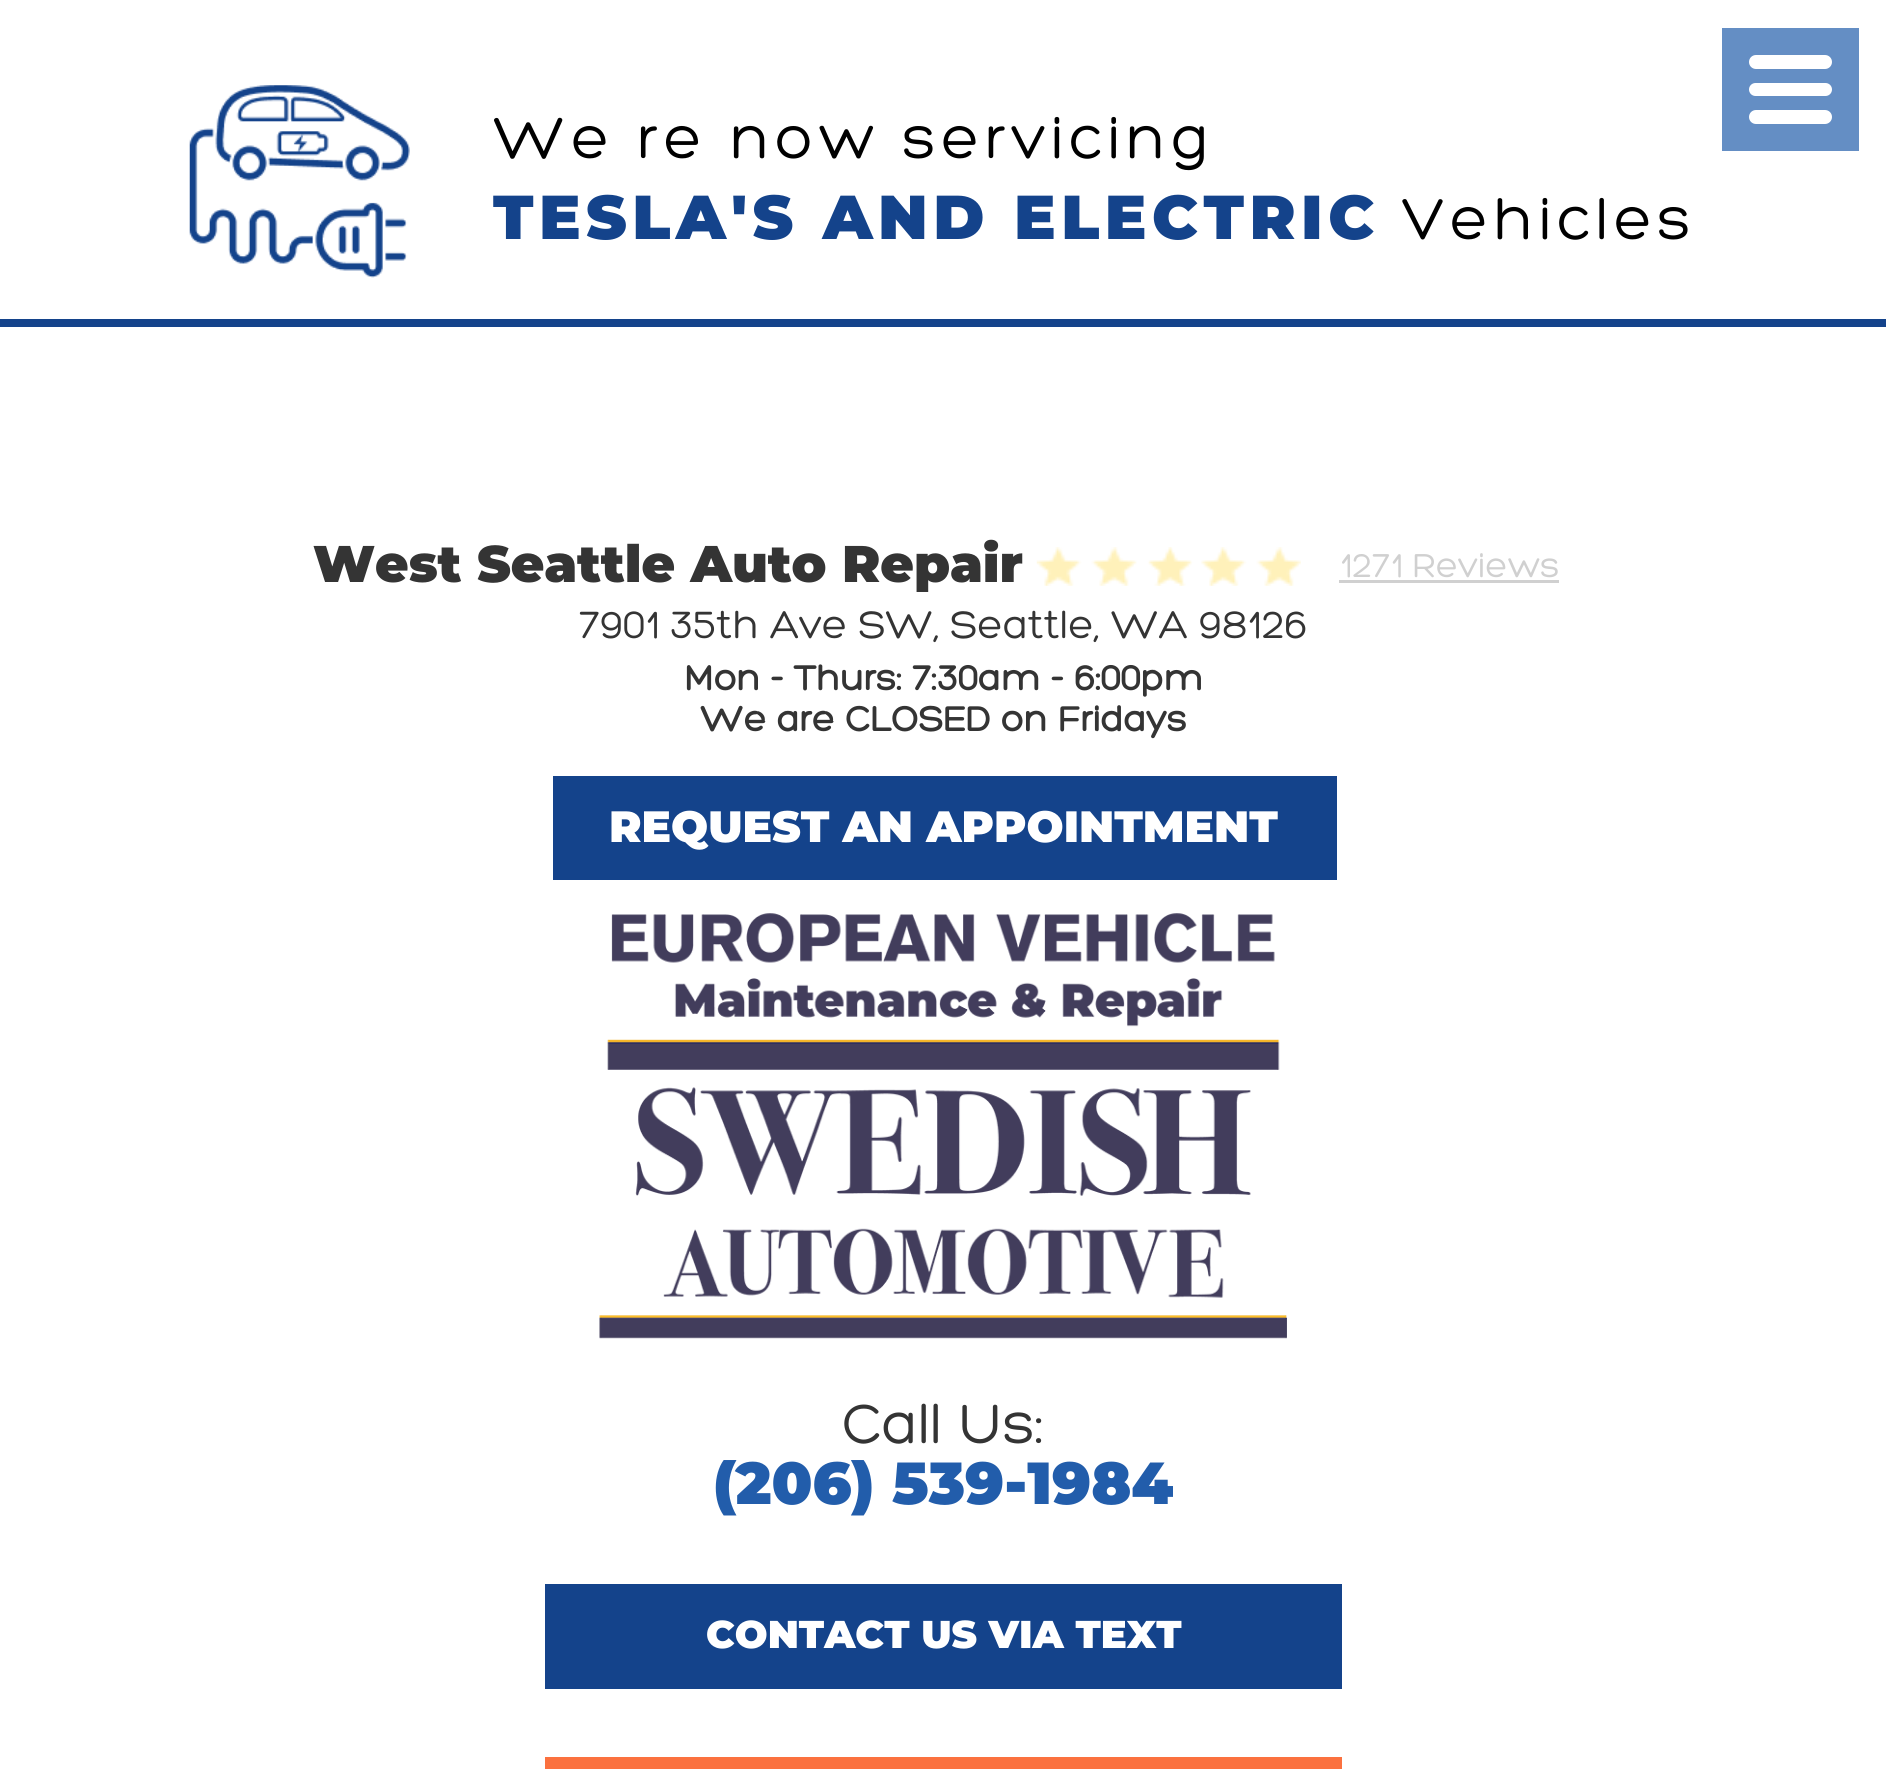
import math
import cairo


def use_color(cr, r, g, b):
  cr.set_source_rgb(r / 255, g / 255, b / 255)

def text(cr, x, y, s, family, size, color, bold=False, italic=False):
  cr.select_font_face(family, cairo.FONT_SLANT_ITALIC if italic else cairo.FONT_SLANT_NORMAL, cairo.FONT_WEIGHT_BOLD if bold else cairo.FONT_WEIGHT_NORMAL)
  cr.set_font_size(size)
  use_color(cr, *color)
  cr.move_to(x, y)
  cr.show_text(s)

def spaced_text(cr, x, y, s, letter, word):
  cr.move_to(x, y)
  for ch in s:
    cr.show_text(ch)
    cr.rel_move_to(letter + word * (ch == ' '), 0)

def box(cr, x, y, w, h, *color):
  use_color(cr, *color)
  cr.rectangle(x, y, w, h)
  cr.fill()

def round_rect(cr, x, y, w, h, r):
  cr.new_sub_path()
  for i, (u, v) in enumerate([(x + w - r, y + h - r), (x + r, y + h - r), (x + r, y + r), (x + w - r, y + r)]):
    cr.arc(u, v, r, i * math.pi / 2, (i + 1) * math.pi / 2)
  cr.close_path()

def picture(cr, path, x, y, w, h):
  cr.save()
  cr.set_source_surface(cairo.ImageSurface.create_from_png(path), x, y)
  cr.rectangle(x, y, w, h)
  cr.fill()
  cr.restore()

def draw(cr):
  use_color(cr, 255, 255, 255)
  cr.paint()
  box(cr, 0, 319, 1886, 8, 20, 67, 139)
  picture(cr, "img_01.png", 189, 85, 221, 193)
  box(cr, 1722, 28, 137, 123, 100, 142, 196)
  use_color(cr, 255, 255, 255)
  round_rect(cr, 1749, 83, 83, 13, 6.5)
  cr.fill()
  round_rect(cr, 1749, 55, 83, 14, 7)
  cr.fill()
  round_rect(cr, 1749, 110, 83, 14, 7)
  cr.fill()
  picture(cr, "img_02.png", 1036, 547, 265, 39)
  box(cr, 1339, 580, 220, 3, 208, 208, 208)
  box(cr, 553, 776, 784, 104, 20, 67, 139)
  picture(cr, "img_03.png", 599, 913, 688, 426)
  box(cr, 545, 1584, 797, 105, 20, 67, 139)
  box(cr, 545, 1757, 797, 12, 251, 113, 63)
  cr.select_font_face("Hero")
  cr.set_font_size(61.9)
  use_color(cr, 0, 0, 0)
  spaced_text(cr, 493, 158, "We re now servicing", 5.5, 0)
  cr.select_font_face("Montserrat Black")
  use_color(cr, 20, 67, 139)
  spaced_text(cr, 493, 239, "TESLA'S AND ELECTRIC", 5.5, 0)
  cr.select_font_face("Hero")
  use_color(cr, 0, 0, 0)
  spaced_text(cr, 1402, 239, "Vehicles", 5.5, 0)
  text(cr, 313, 582, "West Seattle Auto Repair", "Montserrat Black", 51.5, (52, 52, 52))
  text(cr, 1340, 577, "1271 Reviews", "Hero", 36, (208, 208, 208))
  text(cr, 579, 638, "7901 35th Ave SW, Seattle, WA 98126", "Hero", 41.25, (52, 52, 52))
  text(cr, 684, 690, "Mon - Thurs: 7:30am - 6:00pm", "Hero", 37.1, (52, 52, 52), bold=True)
  text(cr, 700, 731, "We are CLOSED on Fridays", "Hero", 37.1, (52, 52, 52), bold=True)
  text(cr, 609, 842, "REQUEST AN APPOINTMENT", "Montserrat Black", 43.8, (255, 255, 255))
  text(cr, 842, 1443, "Call Us:", "Hero", 59.25, (52, 52, 52))
  text(cr, 713, 1504, "(206) 539-1984", "Montserrat Black", 59.25, (34, 93, 171))
  text(cr, 706, 1648, "CONTACT US VIA TEXT", "Montserrat Black", 38.75, (255, 255, 255))


surface = cairo.ImageSurface(cairo.FORMAT_RGB24, 1886, 1769)
cr = cairo.Context(surface)
options = cairo.FontOptions()
options.set_hint_metrics(cairo.HINT_METRICS_OFF)
options.set_hint_style(cairo.HINT_STYLE_NONE)
cr.set_font_options(options)
cr.set_miter_limit(4)
draw(cr)
surface.write_to_png("out.png")
